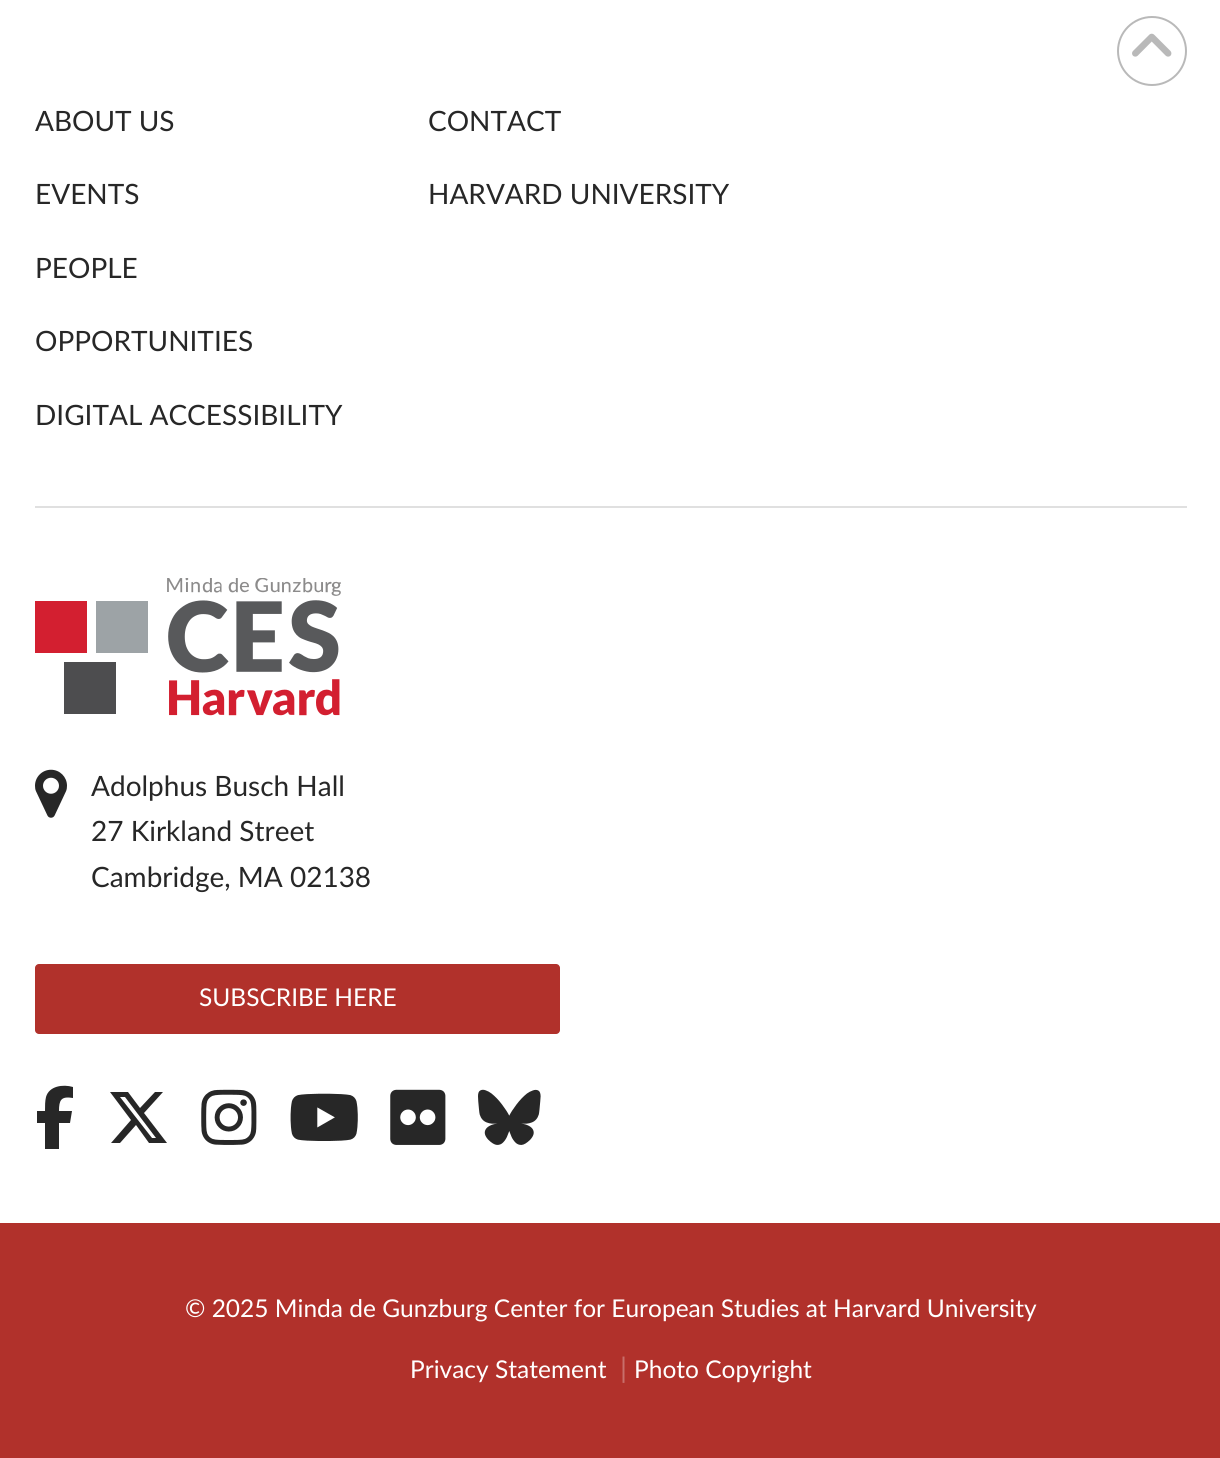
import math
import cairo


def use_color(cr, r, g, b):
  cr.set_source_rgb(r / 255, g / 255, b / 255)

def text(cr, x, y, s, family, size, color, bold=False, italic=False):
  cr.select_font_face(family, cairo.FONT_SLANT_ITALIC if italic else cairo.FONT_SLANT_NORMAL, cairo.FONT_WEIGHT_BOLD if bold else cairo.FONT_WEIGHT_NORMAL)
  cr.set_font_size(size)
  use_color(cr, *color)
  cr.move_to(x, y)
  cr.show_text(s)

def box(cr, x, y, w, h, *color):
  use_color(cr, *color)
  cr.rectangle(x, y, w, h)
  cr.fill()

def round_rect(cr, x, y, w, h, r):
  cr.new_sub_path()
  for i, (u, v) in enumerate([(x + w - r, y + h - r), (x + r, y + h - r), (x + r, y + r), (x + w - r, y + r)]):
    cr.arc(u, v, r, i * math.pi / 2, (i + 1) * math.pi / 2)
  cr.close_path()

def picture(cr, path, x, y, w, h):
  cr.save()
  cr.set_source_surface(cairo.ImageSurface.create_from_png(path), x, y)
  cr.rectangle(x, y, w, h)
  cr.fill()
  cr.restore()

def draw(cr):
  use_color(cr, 255, 255, 255)
  cr.paint()
  cr.arc(1152, 51, 34, 0, 2 * math.pi)
  use_color(cr, 185, 185, 185)
  cr.stroke()
  picture(cr, "img_01.png", 1132, 33, 40, 24)
  box(cr, 35, 506, 1152, 2, 224, 224, 224)
  picture(cr, "img_02.png", 35, 578, 306, 138)
  picture(cr, "img_03.png", 35, 769, 32, 49)
  use_color(cr, 177, 49, 43)
  round_rect(cr, 35, 964, 525, 70, 4)
  cr.fill()
  use_color(cr, 39, 39, 39)
  cr.new_path()
  cr.move_to(45, 1123)
  cr.line_to(45, 1149)
  cr.line_to(45, 1123)
  cr.line_to(45, 1149)
  cr.line_to(59, 1149)
  cr.line_to(59, 1123)
  cr.line_to(70, 1123)
  cr.line_to(72, 1111)
  cr.line_to(59, 1111)
  cr.curve_to(59, 1100, 61, 1096, 73, 1098)
  cr.line_to(73, 1087)
  cr.curve_to(63, 1084, 49, 1086, 46, 1097)
  cr.curve_to(45, 1101, 45, 1106, 45, 1111)
  cr.line_to(37, 1111)
  cr.line_to(37, 1123)
  cr.close_path()
  cr.fill()
  cr.new_path()
  cr.move_to(155, 1092)
  cr.line_to(163, 1092)
  cr.line_to(155, 1092)
  cr.line_to(163, 1092)
  cr.line_to(144, 1113)
  cr.line_to(167, 1143)
  cr.line_to(149, 1143)
  cr.line_to(136, 1125)
  cr.line_to(120, 1143)
  cr.line_to(111, 1143)
  cr.line_to(131, 1120)
  cr.line_to(110, 1092)
  cr.line_to(128, 1092)
  cr.line_to(140, 1108)
  cr.close_path()
  cr.move_to(152, 1138)
  cr.line_to(156, 1138)
  cr.line_to(152, 1138)
  cr.line_to(156, 1138)
  cr.line_to(125, 1097)
  cr.line_to(120, 1097)
  cr.close_path()
  cr.fill()
  picture(cr, "img_04.png", 201, 1089, 56, 56)
  picture(cr, "img_05.png", 290, 1093, 68, 48)
  picture(cr, "img_06.png", 390, 1089, 56, 56)
  picture(cr, "img_07.png", 478, 1089, 63, 56)
  box(cr, 0, 1223, 1220, 235, 177, 49, 43)
  text(cr, 35, 131, "ABOUT US", "Lato", 28, (39, 39, 39))
  text(cr, 35, 204, "EVENTS", "Lato", 28, (39, 39, 39))
  text(cr, 35, 278, "PEOPLE", "Lato", 28, (39, 39, 39))
  text(cr, 35, 351, "OPPORTUNITIES", "Lato", 28, (39, 39, 39))
  text(cr, 35, 425, "DIGITAL ACCESSIBILITY", "Lato", 28, (39, 39, 39))
  text(cr, 428, 131, "CONTACT", "Lato", 28, (39, 39, 39))
  text(cr, 428, 204, "HARVARD UNIVERSITY", "Lato", 28, (39, 39, 39))
  text(cr, 91, 796, "Adolphus Busch Hall", "Lato", 28, (39, 39, 39))
  text(cr, 91, 841, "27 Kirkland Street", "Lato", 28, (39, 39, 39))
  text(cr, 91, 887, "Cambridge, MA 02138", "Lato", 28, (39, 39, 39))
  text(cr, 199, 1006, "SUBSCRIBE HERE", "Lato", 24.5, (255, 255, 255))
  text(cr, 185, 1317, "© 2025 Minda de Gunzburg Center for European Studies at Harvard University", "Lato", 24.5, (255, 255, 255))
  text(cr, 410, 1378, "Privacy Statement", "Lato", 24.5, (255, 255, 255))
  text(cr, 620, 1378, "|", "Lato", 28, (200, 111, 107))
  text(cr, 634, 1378, "Photo Copyright", "Lato", 24.5, (255, 255, 255))


surface = cairo.ImageSurface(cairo.FORMAT_RGB24, 1220, 1458)
cr = cairo.Context(surface)
options = cairo.FontOptions()
options.set_hint_metrics(cairo.HINT_METRICS_OFF)
options.set_hint_style(cairo.HINT_STYLE_NONE)
cr.set_font_options(options)
cr.set_miter_limit(4)
draw(cr)
surface.write_to_png("out.png")
